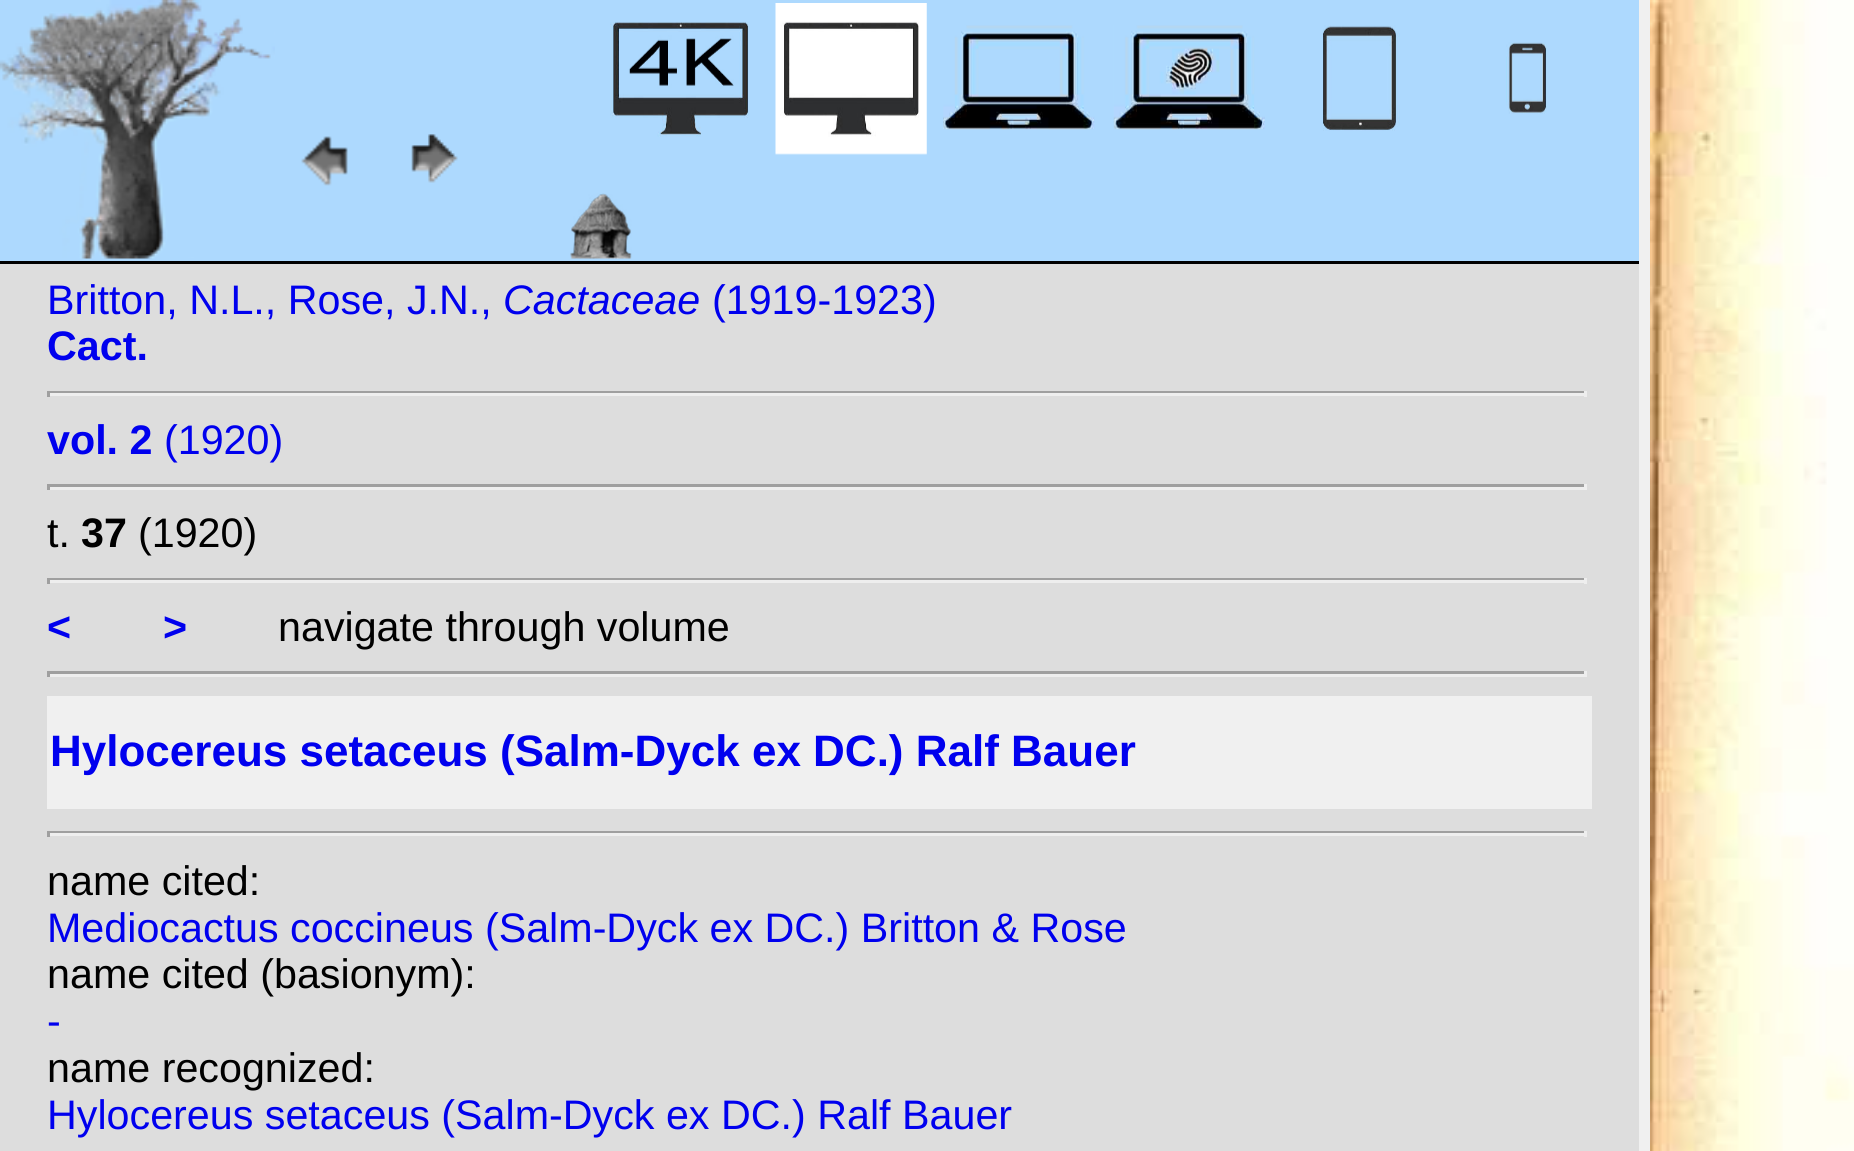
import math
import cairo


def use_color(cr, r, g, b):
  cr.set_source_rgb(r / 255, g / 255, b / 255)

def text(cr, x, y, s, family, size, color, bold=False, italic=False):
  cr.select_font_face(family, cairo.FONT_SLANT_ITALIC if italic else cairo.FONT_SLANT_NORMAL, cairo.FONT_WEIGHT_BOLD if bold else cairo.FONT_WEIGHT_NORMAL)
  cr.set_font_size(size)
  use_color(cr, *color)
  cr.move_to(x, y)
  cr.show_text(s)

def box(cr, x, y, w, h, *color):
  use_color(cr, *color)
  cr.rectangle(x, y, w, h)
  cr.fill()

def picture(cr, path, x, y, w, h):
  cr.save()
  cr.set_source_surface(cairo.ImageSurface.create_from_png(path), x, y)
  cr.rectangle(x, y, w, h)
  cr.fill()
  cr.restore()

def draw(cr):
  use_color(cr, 240, 240, 240)
  cr.paint()
  box(cr, 0, 264, 1639, 887, 221, 221, 221)
  box(cr, 0, 0, 1639, 261, 173, 217, 254)
  box(cr, 0, 261, 1639, 3, 0, 0, 0)
  picture(cr, "img_01.png", 0, 0, 275, 259)
  picture(cr, "img_02.png", 301, 136, 47, 50)
  picture(cr, "img_03.png", 411, 134, 47, 49)
  picture(cr, "img_04.png", 610, 22, 139, 115)
  picture(cr, "img_05.png", 775, 3, 152, 152)
  picture(cr, "img_06.png", 943, 25, 152, 105)
  picture(cr, "img_07.png", 1113, 25, 152, 105)
  picture(cr, "img_08.png", 1323, 25, 77, 106)
  picture(cr, "img_09.png", 1506, 42, 41, 72)
  picture(cr, "img_10.png", 570, 193, 62, 66)
  box(cr, 47, 391, 1540, 2, 159, 159, 159)
  box(cr, 1584, 391, 3, 6, 238, 238, 238)
  box(cr, 47, 393, 1540, 3, 238, 238, 238)
  box(cr, 47, 391, 3, 6, 159, 159, 159)
  box(cr, 47, 484, 1540, 3, 159, 159, 159)
  box(cr, 1584, 484, 3, 6, 238, 238, 238)
  box(cr, 47, 487, 1540, 3, 238, 238, 238)
  box(cr, 47, 484, 3, 6, 159, 159, 159)
  box(cr, 47, 578, 1540, 2, 159, 159, 159)
  box(cr, 1584, 578, 3, 6, 238, 238, 238)
  box(cr, 47, 580, 1540, 3, 238, 238, 238)
  box(cr, 47, 578, 3, 6, 159, 159, 159)
  box(cr, 47, 671, 1540, 3, 159, 159, 159)
  box(cr, 1584, 671, 3, 6, 238, 238, 238)
  box(cr, 47, 674, 1540, 3, 238, 238, 238)
  box(cr, 47, 671, 3, 6, 159, 159, 159)
  box(cr, 47, 696, 1545, 113, 240, 240, 240)
  box(cr, 47, 831, 1540, 2, 159, 159, 159)
  box(cr, 1584, 831, 3, 6, 238, 238, 238)
  box(cr, 47, 833, 1540, 3, 238, 238, 238)
  box(cr, 47, 831, 3, 6, 159, 159, 159)
  picture(cr, "img_11.png", 1650, 0, 204, 1151)
  text(cr, 47, 314, "Britton, N.L., Rose, J.N.,", "Liberation Sans", 41.25, (0, 0, 238))
  text(cr, 503, 314, "Cactaceae", "Liberation Sans", 41.25, (0, 0, 238), italic=True)
  text(cr, 712, 314, "(1919-1923)", "Liberation Sans", 41.25, (0, 0, 238))
  text(cr, 47, 360, "Cact.", "Liberation Sans", 41.25, (0, 0, 238), bold=True)
  text(cr, 47, 454, "vol. 2", "Liberation Sans", 41.25, (0, 0, 238), bold=True)
  text(cr, 164, 454, "(1920)", "Liberation Sans", 41.25, (0, 0, 238))
  text(cr, 47, 547, "t.", "Liberation Sans", 41.25, (0, 0, 0))
  text(cr, 81, 547, "37", "Liberation Sans", 41.25, (0, 0, 0), bold=True)
  text(cr, 138, 547, "(1920)", "Liberation Sans", 41.25, (0, 0, 0))
  text(cr, 47, 641, "<", "Liberation Sans", 41.25, (0, 0, 238), bold=True)
  text(cr, 163, 641, ">", "Liberation Sans", 41.25, (0, 0, 238), bold=True)
  text(cr, 278, 641, "navigate through volume", "Liberation Sans", 41.25, (0, 0, 0))
  text(cr, 50, 766, "Hylocereus setaceus (Salm-Dyck ex DC.) Ralf Bauer", "Liberation Sans", 44, (0, 0, 238), bold=True)
  text(cr, 47, 895, "name cited:", "Liberation Sans", 41.25, (0, 0, 0))
  text(cr, 47, 942, "Mediocactus coccineus (Salm-Dyck ex DC.) Britton & Rose", "Liberation Sans", 41.25, (0, 0, 238))
  text(cr, 47, 988, "name cited (basionym):", "Liberation Sans", 41.25, (0, 0, 0))
  text(cr, 47, 1035, "-", "Liberation Sans", 41.25, (0, 0, 238))
  text(cr, 47, 1082, "name recognized:", "Liberation Sans", 41.25, (0, 0, 0))
  text(cr, 47, 1129, "Hylocereus setaceus (Salm-Dyck ex DC.) Ralf Bauer", "Liberation Sans", 41.25, (0, 0, 238))


surface = cairo.ImageSurface(cairo.FORMAT_RGB24, 1854, 1151)
cr = cairo.Context(surface)
options = cairo.FontOptions()
options.set_hint_metrics(cairo.HINT_METRICS_OFF)
options.set_hint_style(cairo.HINT_STYLE_NONE)
cr.set_font_options(options)
cr.set_miter_limit(4)
draw(cr)
surface.write_to_png("out.png")
